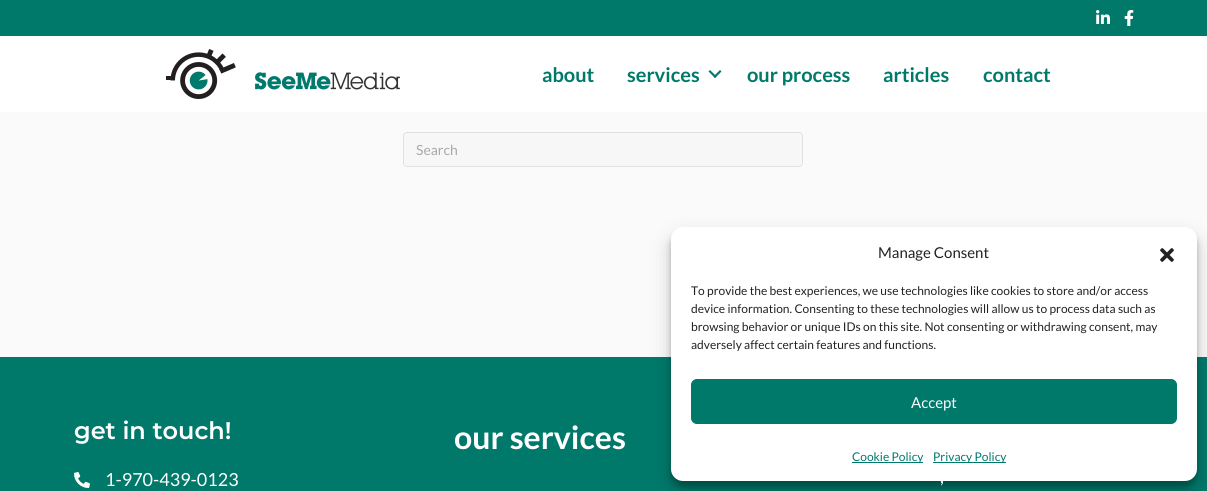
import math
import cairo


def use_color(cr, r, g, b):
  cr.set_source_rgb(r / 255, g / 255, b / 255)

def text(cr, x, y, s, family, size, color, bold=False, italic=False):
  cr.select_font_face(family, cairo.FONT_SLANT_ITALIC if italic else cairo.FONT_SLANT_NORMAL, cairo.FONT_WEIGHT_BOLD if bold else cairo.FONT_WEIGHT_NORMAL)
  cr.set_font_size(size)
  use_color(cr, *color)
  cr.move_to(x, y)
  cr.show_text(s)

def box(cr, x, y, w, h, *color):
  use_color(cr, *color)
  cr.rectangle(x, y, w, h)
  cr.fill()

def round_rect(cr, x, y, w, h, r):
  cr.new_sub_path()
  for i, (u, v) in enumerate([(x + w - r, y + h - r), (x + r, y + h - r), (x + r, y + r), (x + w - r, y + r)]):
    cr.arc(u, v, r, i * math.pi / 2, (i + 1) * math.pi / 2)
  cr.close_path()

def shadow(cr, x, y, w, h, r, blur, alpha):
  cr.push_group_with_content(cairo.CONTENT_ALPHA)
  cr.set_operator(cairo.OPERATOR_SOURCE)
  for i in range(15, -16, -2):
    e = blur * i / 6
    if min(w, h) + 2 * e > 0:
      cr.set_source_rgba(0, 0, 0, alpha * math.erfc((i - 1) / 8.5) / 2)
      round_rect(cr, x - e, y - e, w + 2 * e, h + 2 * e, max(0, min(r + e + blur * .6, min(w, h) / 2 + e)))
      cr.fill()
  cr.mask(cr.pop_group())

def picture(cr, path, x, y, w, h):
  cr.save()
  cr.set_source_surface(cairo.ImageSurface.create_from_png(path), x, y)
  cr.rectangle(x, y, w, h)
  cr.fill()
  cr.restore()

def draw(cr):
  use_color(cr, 250, 250, 250)
  cr.paint()
  box(cr, 0, 0, 1207, 36, 0, 121, 107)
  picture(cr, "img_01.png", 1096, 10, 14, 14)
  picture(cr, "img_02.png", 1124, 10, 10, 16)
  box(cr, 0, 36, 1207, 76, 255, 255, 255)
  picture(cr, "img_03.png", 166, 49, 234, 50)
  use_color(cr, 0, 121, 107)
  cr.new_path()
  cr.move_to(720, 70)
  cr.line_to(721.5, 71.5)
  cr.line_to(715, 78)
  cr.line_to(713.5, 76.5)
  cr.close_path()
  cr.fill()
  cr.new_path()
  cr.move_to(710, 70)
  cr.line_to(716.5, 76.5)
  cr.line_to(715, 78)
  cr.line_to(708.5, 71.5)
  cr.close_path()
  cr.fill()
  use_color(cr, 247, 247, 247)
  round_rect(cr, 403.5, 132.5, 399, 34, 3.5)
  cr.fill_preserve()
  use_color(cr, 225, 225, 225)
  cr.set_line_width(1)
  cr.stroke()
  box(cr, 0, 357, 1207, 134, 0, 121, 107)
  picture(cr, "img_04.png", 74, 472, 16, 16)
  use_color(cr, 0, 0, 0)
  shadow(cr, 671, 233, 526, 254, 12, 3, 0.23)
  shadow(cr, 671, 237, 526, 254, 12, 10, 0.19)
  use_color(cr, 255, 255, 255)
  round_rect(cr, 671, 227, 526, 254, 12)
  cr.fill()
  picture(cr, "img_05.png", 1160, 248, 14, 14)
  use_color(cr, 0, 121, 107)
  round_rect(cr, 691.5, 379.5, 485, 44, 5.5)
  cr.fill_preserve()
  cr.stroke()
  box(cr, 852, 462, 71, 1, 0, 121, 107)
  box(cr, 933, 462, 73, 1, 0, 121, 107)
  text(cr, 542, 82, "about", "Lato", 20, (0, 121, 107), bold=True)
  text(cr, 627, 82, "services", "Lato", 20, (0, 121, 107), bold=True)
  text(cr, 747, 82, "our process", "Lato", 20, (0, 121, 107), bold=True)
  text(cr, 883, 82, "articles", "Lato", 20, (0, 121, 107), bold=True)
  text(cr, 983, 82, "contact", "Lato", 20, (0, 121, 107), bold=True)
  text(cr, 416, 155, "Search", "Lato", 14, (169, 169, 169))
  text(cr, 74, 439, "get in touch!", "Montserrat SemiBold", 24, (255, 255, 255))
  text(cr, 105, 486, "1-970-439-0123", "Lato", 18, (255, 255, 255))
  text(cr, 454, 449, "our services", "Lato", 32, (255, 255, 255), bold=True)
  text(cr, 940, 483, ",", "Lato", 18, (255, 255, 255))
  text(cr, 878, 258, "Manage Consent", "Lato", 15, (34, 34, 34))
  text(cr, 691, 295, "To provide the best experiences, we use technologies like cookies to store and/or access", "Lato", 12, (34, 34, 34))
  text(cr, 691, 313, "device information. Consenting to these technologies will allow us to process data such as", "Lato", 12, (34, 34, 34))
  text(cr, 691, 331, "browsing behavior or unique IDs on this site. Not consenting or withdrawing consent, may", "Lato", 12, (34, 34, 34))
  text(cr, 691, 349, "adversely affect certain features and functions.", "Lato", 12, (34, 34, 34))
  text(cr, 911, 408, "Accept", "Lato", 15, (255, 255, 255))
  text(cr, 852, 461, "Cookie Policy", "Lato", 12, (0, 121, 107))
  text(cr, 933, 461, "Privacy Policy", "Lato", 12, (0, 121, 107))


surface = cairo.ImageSurface(cairo.FORMAT_RGB24, 1207, 491)
cr = cairo.Context(surface)
options = cairo.FontOptions()
options.set_hint_metrics(cairo.HINT_METRICS_OFF)
options.set_hint_style(cairo.HINT_STYLE_NONE)
cr.set_font_options(options)
cr.set_miter_limit(4)
draw(cr)
surface.write_to_png("out.png")
